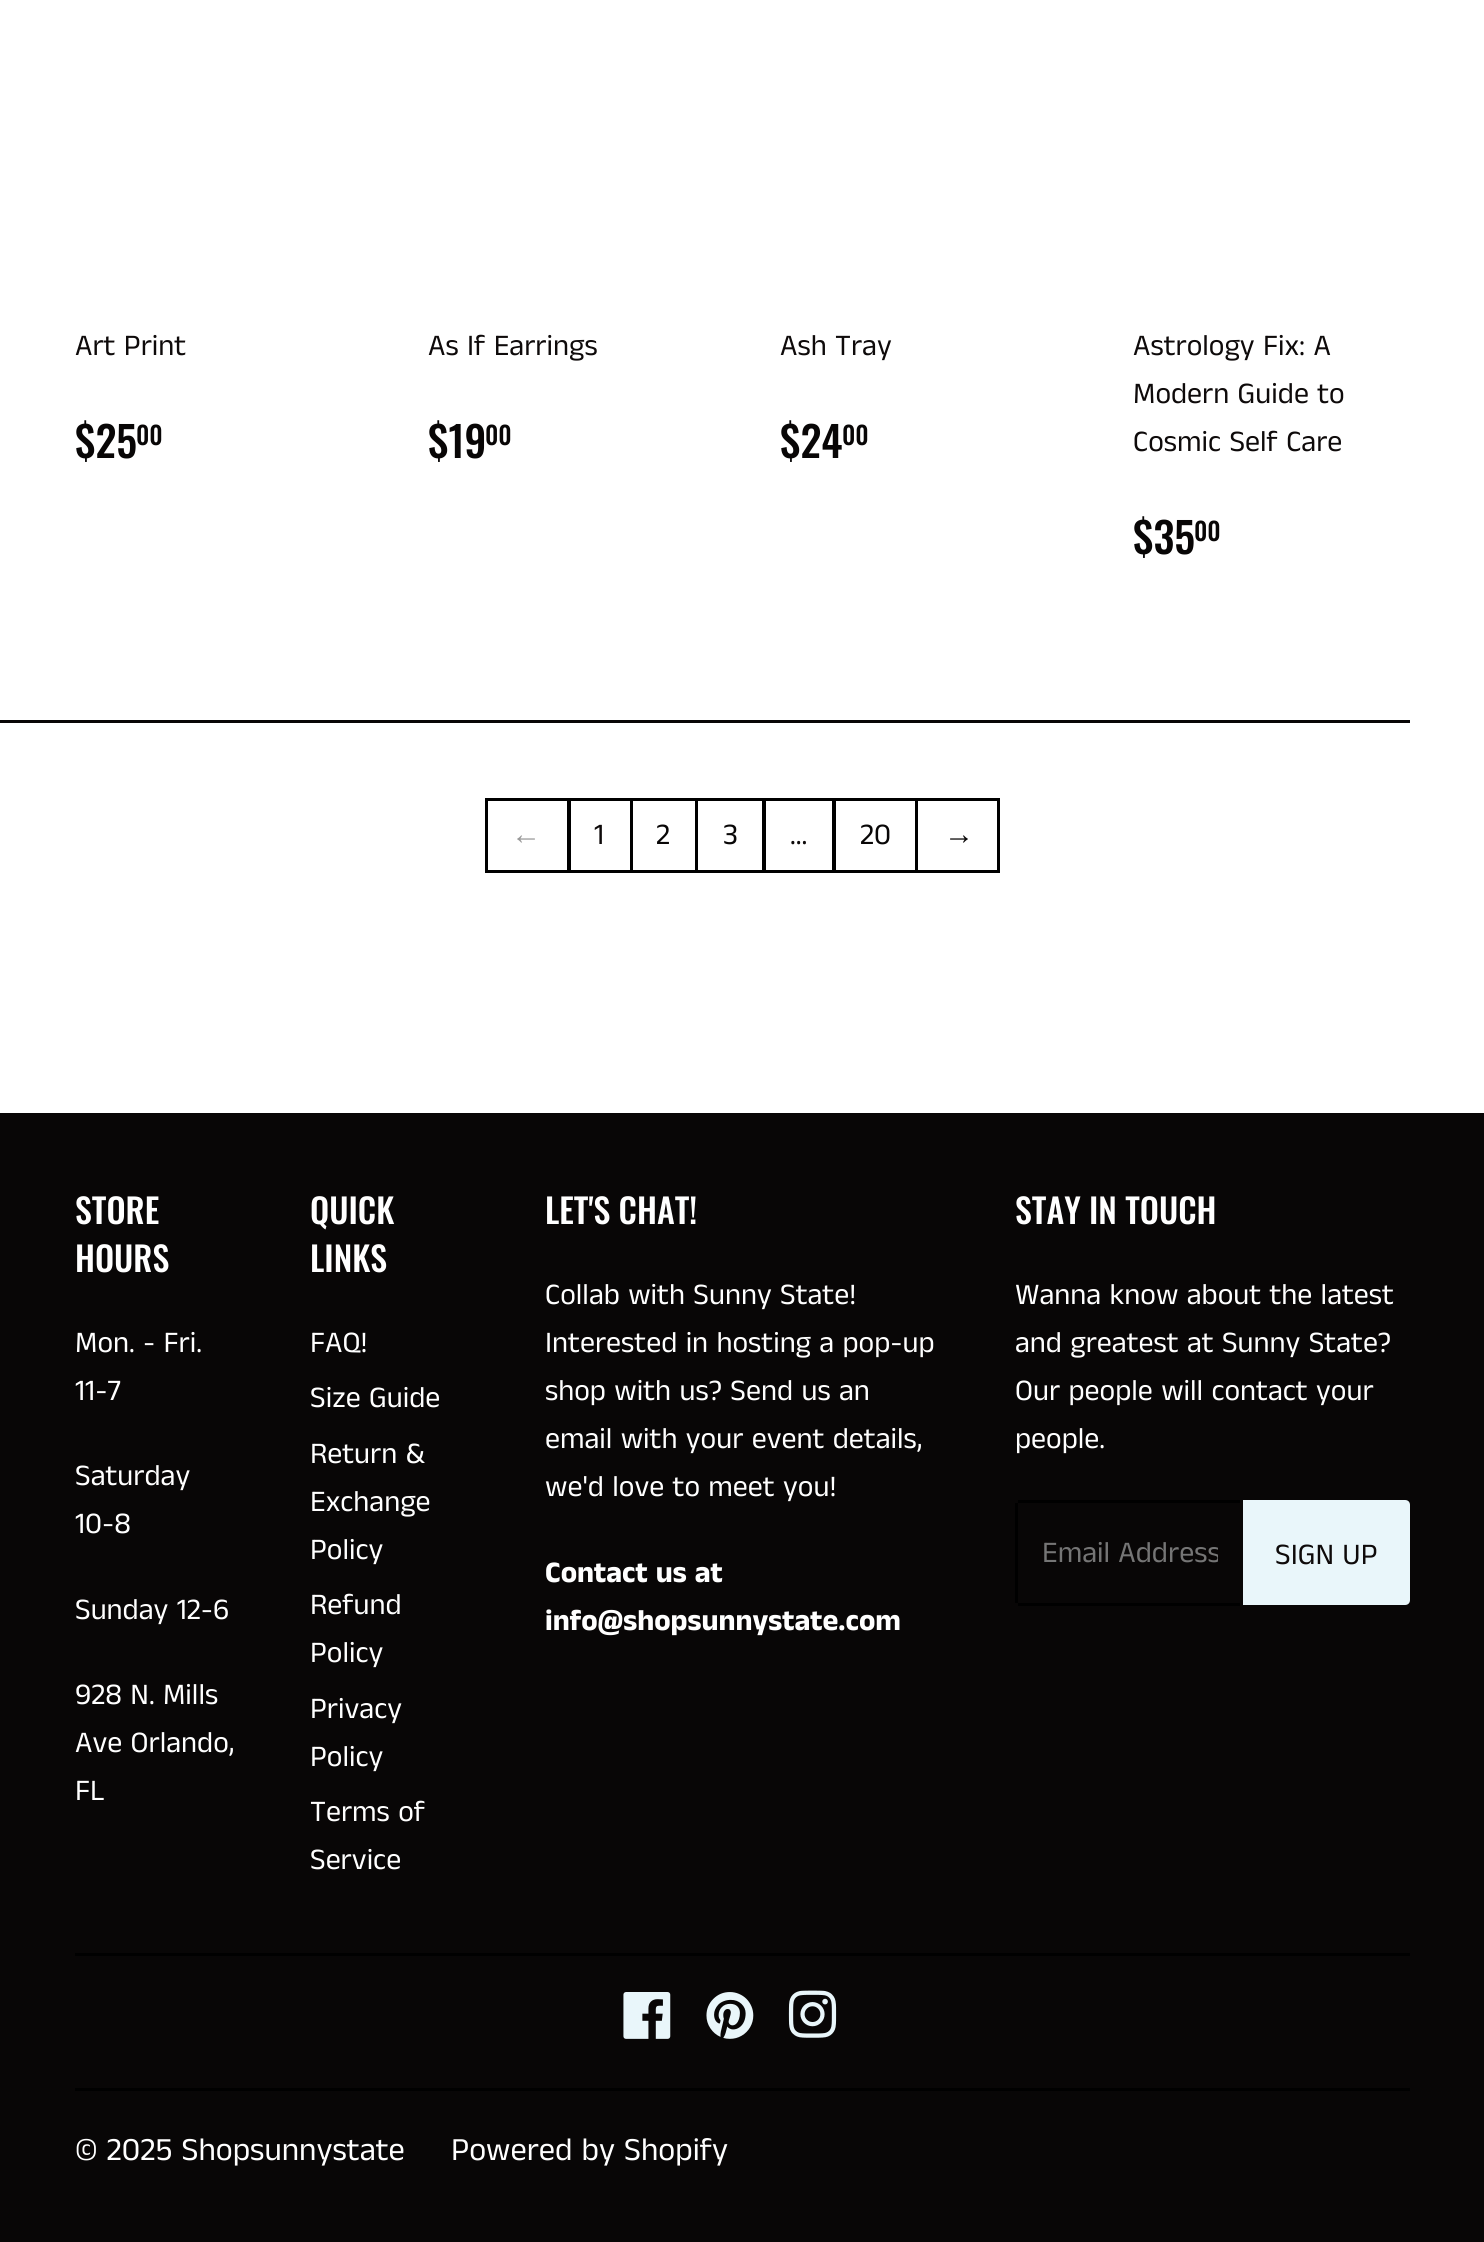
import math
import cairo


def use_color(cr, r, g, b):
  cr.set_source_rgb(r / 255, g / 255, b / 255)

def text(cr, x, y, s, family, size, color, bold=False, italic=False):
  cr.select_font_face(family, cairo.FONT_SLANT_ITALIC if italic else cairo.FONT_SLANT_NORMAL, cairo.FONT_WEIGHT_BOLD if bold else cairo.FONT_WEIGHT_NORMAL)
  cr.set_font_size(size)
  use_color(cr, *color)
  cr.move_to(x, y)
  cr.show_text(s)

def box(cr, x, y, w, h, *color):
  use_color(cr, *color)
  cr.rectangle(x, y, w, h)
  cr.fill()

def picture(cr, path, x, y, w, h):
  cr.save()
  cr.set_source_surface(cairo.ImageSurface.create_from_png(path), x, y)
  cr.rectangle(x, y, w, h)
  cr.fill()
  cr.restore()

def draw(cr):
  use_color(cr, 255, 255, 255)
  cr.paint()
  box(cr, 0, 720, 1410, 3, 8, 6, 6)
  cr.rectangle(486.5, 799.5, 82, 72)
  use_color(cr, 0, 0, 0)
  cr.set_line_width(3)
  cr.stroke()
  cr.rectangle(631.5, 799.5, 65, 72)
  cr.stroke()
  cr.rectangle(569.5, 799.5, 62, 72)
  cr.stroke()
  cr.rectangle(696.5, 799.5, 67, 72)
  cr.stroke()
  cr.rectangle(764.5, 799.5, 69, 72)
  cr.stroke()
  cr.rectangle(834.5, 799.5, 82, 72)
  cr.stroke()
  cr.rectangle(916.5, 799.5, 82, 72)
  cr.stroke()
  box(cr, 0, 1113, 1484, 1129, 8, 6, 6)
  box(cr, 1018, 1500, 222, 3, 0, 0, 0)
  box(cr, 1018, 1603, 222, 3, 0, 0, 0)
  box(cr, 1015, 1503, 3, 100, 0, 0, 0)
  use_color(cr, 233, 246, 250)
  cr.new_path()
  cr.move_to(1243, 1500)
  cr.line_to(1405, 1500)
  cr.curve_to(1408, 1500, 1410, 1502, 1410, 1505)
  cr.line_to(1410, 1600)
  cr.curve_to(1410, 1603, 1408, 1605, 1405, 1605)
  cr.line_to(1243, 1605)
  cr.close_path()
  cr.fill()
  box(cr, 75, 1953, 1335, 3, 0, 0, 0)
  picture(cr, "img_01.png", 623, 1992, 48, 47)
  picture(cr, "img_02.png", 706, 1992, 48, 47)
  picture(cr, "img_03.png", 788, 1990, 49, 48)
  box(cr, 75, 2088, 1335, 3, 0, 0, 0)
  text(cr, 75, 355, "Art Print", "Anek Tamil", 30, (14, 10, 10))
  text(cr, 75, 458, "$25", "Oswald Medium", 42, (8, 6, 6))
  text(cr, 136, 445, "00", "Oswald Medium", 25, (8, 6, 6))
  text(cr, 428, 355, "As If Earrings", "Anek Tamil", 30, (14, 10, 10))
  text(cr, 428, 458, "$19", "Oswald Medium", 42, (8, 6, 6))
  text(cr, 485, 445, "00", "Oswald Medium", 25, (8, 6, 6))
  text(cr, 780, 355, "Ash Tray", "Anek Tamil", 30, (14, 10, 10))
  text(cr, 780, 458, "$24", "Oswald Medium", 42, (8, 6, 6))
  text(cr, 842, 445, "00", "Oswald Medium", 25, (8, 6, 6))
  text(cr, 1133, 355, "Astrology Fix: A", "Anek Tamil", 30, (14, 10, 10))
  text(cr, 1133, 403, "Modern Guide to", "Anek Tamil", 30, (14, 10, 10))
  text(cr, 1133, 451, "Cosmic Self Care", "Anek Tamil", 30, (14, 10, 10))
  text(cr, 1133, 554, "$35", "Oswald Medium", 42, (8, 6, 6))
  text(cr, 1194, 541, "00", "Oswald Medium", 25, (8, 6, 6))
  text(cr, 511, 844, "←", "Liberation Sans", 30, (153, 153, 153))
  text(cr, 594, 844, "1", "Anek Tamil", 30, (14, 10, 10))
  text(cr, 656, 844, "2", "Anek Tamil", 30, (8, 6, 6))
  text(cr, 723, 844, "3", "Anek Tamil", 30, (8, 6, 6))
  text(cr, 790, 844, "…", "Anek Tamil", 30, (14, 10, 10))
  text(cr, 860, 844, "20", "Anek Tamil", 30, (8, 6, 6))
  text(cr, 944, 844, "→", "Liberation Sans", 30, (8, 6, 6))
  text(cr, 75, 1224, "STORE", "Oswald Medium", 34, (255, 255, 255))
  text(cr, 75, 1272, "HOURS", "Oswald Medium", 34, (255, 255, 255))
  text(cr, 75, 1352, "Mon. - Fri.", "Anek Tamil", 30, (255, 255, 255))
  text(cr, 75, 1400, "11-7", "Anek Tamil", 30, (255, 255, 255))
  text(cr, 75, 1485, "Saturday", "Anek Tamil", 30, (255, 255, 255))
  text(cr, 75, 1533, "10-8", "Anek Tamil", 30, (255, 255, 255))
  text(cr, 75, 1619, "Sunday 12-6", "Anek Tamil", 30, (255, 255, 255))
  text(cr, 75, 1704, "928 N. Mills", "Anek Tamil", 30, (255, 255, 255))
  text(cr, 75, 1752, "Ave Orlando,", "Anek Tamil", 30, (255, 255, 255))
  text(cr, 75, 1800, "FL", "Anek Tamil", 30, (255, 255, 255))
  text(cr, 310, 1224, "QUICK", "Oswald Medium", 34, (255, 255, 255))
  text(cr, 310, 1272, "LINKS", "Oswald Medium", 34, (255, 255, 255))
  text(cr, 310, 1352, "FAQ!", "Anek Tamil", 30, (255, 255, 255))
  text(cr, 310, 1407, "Size Guide", "Anek Tamil", 30, (255, 255, 255))
  text(cr, 310, 1463, "Return &", "Anek Tamil", 30, (255, 255, 255))
  text(cr, 310, 1511, "Exchange", "Anek Tamil", 30, (255, 255, 255))
  text(cr, 310, 1559, "Policy", "Anek Tamil", 30, (255, 255, 255))
  text(cr, 310, 1614, "Refund", "Anek Tamil", 30, (255, 255, 255))
  text(cr, 310, 1662, "Policy", "Anek Tamil", 30, (255, 255, 255))
  text(cr, 310, 1718, "Privacy", "Anek Tamil", 30, (255, 255, 255))
  text(cr, 310, 1766, "Policy", "Anek Tamil", 30, (255, 255, 255))
  text(cr, 310, 1821, "Terms of", "Anek Tamil", 30, (255, 255, 255))
  text(cr, 310, 1869, "Service", "Anek Tamil", 30, (255, 255, 255))
  text(cr, 545, 1224, "LET'S CHAT!", "Oswald Medium", 34, (255, 255, 255))
  text(cr, 545, 1304, "Collab with Sunny State!", "Anek Tamil", 30, (255, 255, 255))
  text(cr, 545, 1352, "Interested in hosting a pop-up", "Anek Tamil", 30, (255, 255, 255))
  text(cr, 545, 1400, "shop with us? Send us an", "Anek Tamil", 30, (255, 255, 255))
  text(cr, 545, 1448, "email with your event details,", "Anek Tamil", 30, (255, 255, 255))
  text(cr, 545, 1496, "we'd love to meet you!", "Anek Tamil", 30, (255, 255, 255))
  text(cr, 545, 1582, "Contact us at", "Anek Tamil", 30, (255, 255, 255), bold=True)
  text(cr, 545, 1630, "info@shopsunnystate.com", "Anek Tamil", 30, (255, 255, 255), bold=True)
  text(cr, 1015, 1224, "STAY IN TOUCH", "Oswald Medium", 34, (255, 255, 255))
  text(cr, 1015, 1304, "Wanna know about the latest", "Anek Tamil", 30, (255, 255, 255))
  text(cr, 1015, 1352, "and greatest at Sunny State?", "Anek Tamil", 30, (255, 255, 255))
  text(cr, 1015, 1400, "Our people will contact your", "Anek Tamil", 30, (255, 255, 255))
  text(cr, 1015, 1448, "people.", "Anek Tamil", 30, (255, 255, 255))
  cr.save()
  cr.rectangle(1043, 1533, 175, 42)
  cr.clip()
  text(cr, 1042, 1562, "Email Address", "Anek Tamil", 30, (117, 117, 117))
  cr.restore()
  text(cr, 1275, 1564, "SIGN UP", "Anek Tamil", 30, (14, 10, 10))
  text(cr, 75, 2160, "© 2025 Shopsunnystate", "Anek Tamil", 32.5, (255, 255, 255))
  text(cr, 451, 2160, "Powered by Shopify", "Anek Tamil", 32.5, (255, 255, 255))


surface = cairo.ImageSurface(cairo.FORMAT_RGB24, 1484, 2242)
cr = cairo.Context(surface)
options = cairo.FontOptions()
options.set_hint_metrics(cairo.HINT_METRICS_OFF)
options.set_hint_style(cairo.HINT_STYLE_NONE)
cr.set_font_options(options)
cr.set_miter_limit(4)
draw(cr)
surface.write_to_png("out.png")
